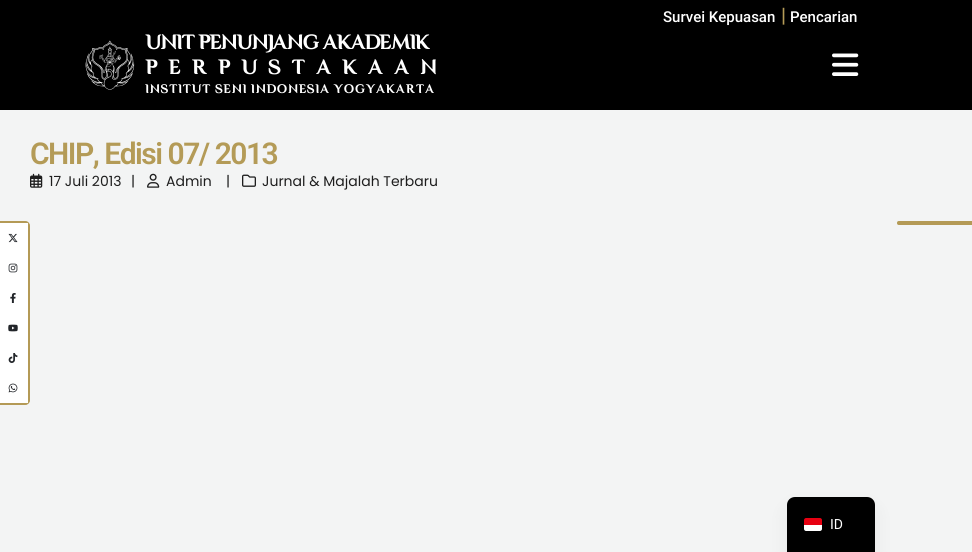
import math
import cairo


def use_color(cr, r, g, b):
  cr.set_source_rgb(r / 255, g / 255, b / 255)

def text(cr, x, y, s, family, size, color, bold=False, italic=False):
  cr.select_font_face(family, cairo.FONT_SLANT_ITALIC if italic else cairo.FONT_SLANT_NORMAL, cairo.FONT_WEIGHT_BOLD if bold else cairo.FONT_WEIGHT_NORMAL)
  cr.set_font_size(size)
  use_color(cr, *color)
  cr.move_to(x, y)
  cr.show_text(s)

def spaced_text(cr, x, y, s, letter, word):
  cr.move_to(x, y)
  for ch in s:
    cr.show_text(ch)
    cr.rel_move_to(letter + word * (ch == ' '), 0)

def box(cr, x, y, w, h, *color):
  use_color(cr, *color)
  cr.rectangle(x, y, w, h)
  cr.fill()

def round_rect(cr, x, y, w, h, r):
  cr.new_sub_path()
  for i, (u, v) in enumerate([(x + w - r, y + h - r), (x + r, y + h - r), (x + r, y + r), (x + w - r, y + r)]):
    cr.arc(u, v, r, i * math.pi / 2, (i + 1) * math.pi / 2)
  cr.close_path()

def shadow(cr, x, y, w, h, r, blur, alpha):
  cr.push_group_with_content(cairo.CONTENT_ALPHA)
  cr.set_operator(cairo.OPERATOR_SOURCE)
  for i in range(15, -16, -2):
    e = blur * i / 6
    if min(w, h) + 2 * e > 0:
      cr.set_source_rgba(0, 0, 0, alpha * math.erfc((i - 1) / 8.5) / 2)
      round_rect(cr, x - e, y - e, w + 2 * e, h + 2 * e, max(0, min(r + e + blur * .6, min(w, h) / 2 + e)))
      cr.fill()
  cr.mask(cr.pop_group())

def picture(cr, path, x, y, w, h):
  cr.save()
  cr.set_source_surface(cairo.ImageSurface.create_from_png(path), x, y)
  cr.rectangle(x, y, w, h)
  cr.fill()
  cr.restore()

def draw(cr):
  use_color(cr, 0, 0, 0)
  cr.paint()
  picture(cr, "img_01.png", 85, 40, 50, 50)
  picture(cr, "img_02.png", 832, 53, 27, 23)
  box(cr, 0, 110, 972, 442, 243, 244, 244)
  round_rect(cr, -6, 222, 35, 182, 4)
  use_color(cr, 180, 155, 87)
  cr.stroke()
  round_rect(cr, -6, 222, 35, 182, 4)
  cr.set_source_rgba(0.706, 0.608, 0.341, 0.5)
  cr.stroke()
  box(cr, 0, 223, 28, 180, 255, 255, 255)
  picture(cr, "img_03.png", 8, 233, 10, 10)
  picture(cr, "img_04.png", 8, 263, 10, 10)
  picture(cr, "img_05.png", 10, 293, 6, 10)
  picture(cr, "img_06.png", 8, 324, 10, 8)
  picture(cr, "img_07.png", 8, 353, 10, 10)
  picture(cr, "img_08.png", 8, 383, 10, 10)
  use_color(cr, 180, 155, 87)
  round_rect(cr, 897, 221, 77, 4, 2)
  cr.fill()
  cr.set_source_rgba(0.706, 0.608, 0.341, 0.5)
  round_rect(cr, 897, 221, 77, 4, 2)
  cr.fill()
  picture(cr, "img_09.png", 30, 173, 13, 15)
  picture(cr, "img_10.png", 147, 173, 13, 15)
  picture(cr, "img_11.png", 242, 174, 14, 13)
  use_color(cr, 0, 0, 0)
  shadow(cr, 787, 507, 88, 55, 8, 10, 0.05)
  use_color(cr, 0, 0, 0)
  cr.new_path()
  cr.move_to(795, 497)
  cr.line_to(867, 497)
  cr.curve_to(871.5, 497, 875, 500.5, 875, 505)
  cr.line_to(875, 552)
  cr.line_to(787, 552)
  cr.line_to(787, 505)
  cr.curve_to(787, 500.5, 790.5, 497, 795, 497)
  cr.close_path()
  cr.fill()
  use_color(cr, 231, 0, 17)
  cr.new_path()
  cr.move_to(806, 518)
  cr.line_to(820, 518)
  cr.curve_to(821, 518, 822, 519, 822, 520)
  cr.line_to(822, 525)
  cr.line_to(804, 525)
  cr.line_to(804, 520)
  cr.curve_to(804, 519, 805, 518, 806, 518)
  cr.close_path()
  cr.fill()
  use_color(cr, 255, 255, 255)
  cr.new_path()
  cr.move_to(804, 525)
  cr.line_to(822, 525)
  cr.line_to(822, 529)
  cr.curve_to(822, 530, 821, 531, 820, 531)
  cr.line_to(806, 531)
  cr.curve_to(805, 531, 804, 530, 804, 529)
  cr.close_path()
  cr.fill()
  text(cr, 663, 22, "Survei Kepuasan", "Roboto Medium", 15, (255, 255, 255))
  cr.select_font_face("Roboto SemiBold")
  cr.set_font_size(20)
  use_color(cr, 180, 155, 87)
  spaced_text(cr, 781, 22, "|", -1, 0)
  text(cr, 790, 22, "Pencarian", "Roboto Medium", 15, (255, 255, 255))
  cr.select_font_face("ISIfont", cairo.FONT_SLANT_NORMAL, cairo.FONT_WEIGHT_BOLD)
  cr.set_font_size(20)
  spaced_text(cr, 145, 49, "UNIT PENUNJANG AKADEMIK", -1, 0)
  spaced_text(cr, 145, 74, "PERPUSTAKAAN", 10.9, 0)
  cr.set_font_size(12)
  spaced_text(cr, 145, 93, "INSTITUT SENI INDONESIA YOGYAKARTA", 0.85, 0)
  cr.select_font_face("Roboto SemiBold")
  cr.set_font_size(30)
  use_color(cr, 180, 155, 87)
  spaced_text(cr, 30, 164, "CHIP, Edisi 07/ 2013", -1.5, 0)
  text(cr, 49, 186, "17 Juli 2013", "Poppins", 14, (30, 30, 30))
  text(cr, 131, 186, "|", "Poppins", 14, (30, 30, 30))
  text(cr, 166, 186, "Admin", "Poppins", 14, (30, 30, 30))
  text(cr, 226, 186, "|", "Poppins", 14, (30, 30, 30))
  text(cr, 262, 186, "Jurnal & Majalah Terbaru", "Poppins", 14, (30, 30, 30))
  text(cr, 830, 529, "ID", "Roboto", 14, (255, 255, 255))


surface = cairo.ImageSurface(cairo.FORMAT_RGB24, 972, 552)
cr = cairo.Context(surface)
options = cairo.FontOptions()
options.set_hint_metrics(cairo.HINT_METRICS_OFF)
options.set_hint_style(cairo.HINT_STYLE_NONE)
cr.set_font_options(options)
cr.set_miter_limit(4)
draw(cr)
surface.write_to_png("out.png")
